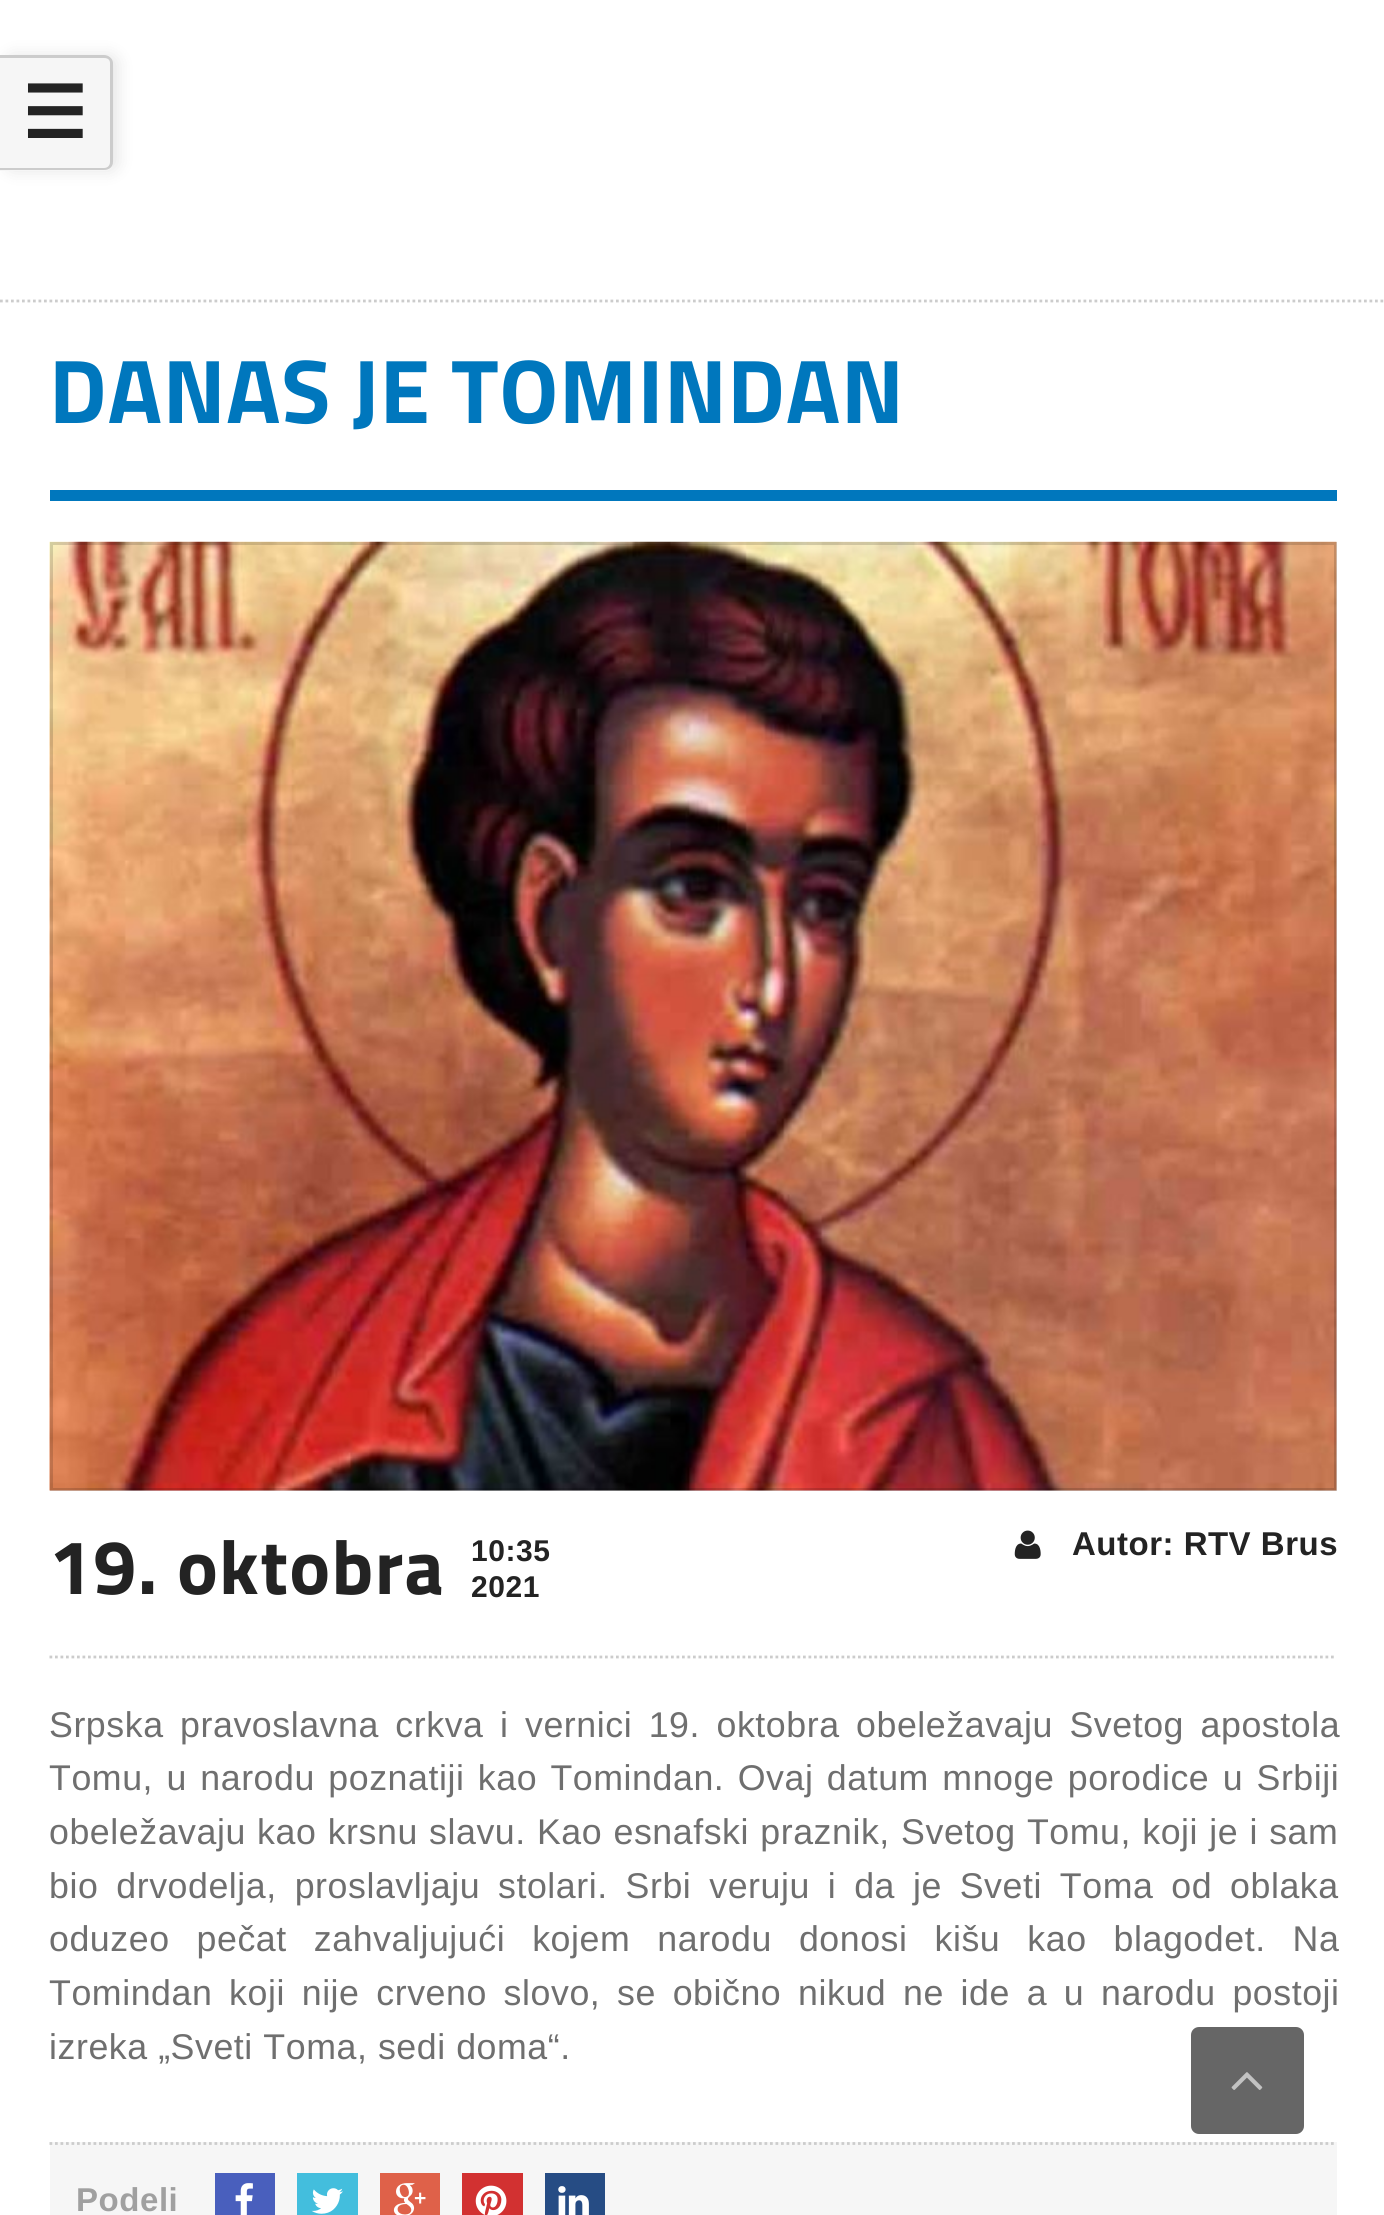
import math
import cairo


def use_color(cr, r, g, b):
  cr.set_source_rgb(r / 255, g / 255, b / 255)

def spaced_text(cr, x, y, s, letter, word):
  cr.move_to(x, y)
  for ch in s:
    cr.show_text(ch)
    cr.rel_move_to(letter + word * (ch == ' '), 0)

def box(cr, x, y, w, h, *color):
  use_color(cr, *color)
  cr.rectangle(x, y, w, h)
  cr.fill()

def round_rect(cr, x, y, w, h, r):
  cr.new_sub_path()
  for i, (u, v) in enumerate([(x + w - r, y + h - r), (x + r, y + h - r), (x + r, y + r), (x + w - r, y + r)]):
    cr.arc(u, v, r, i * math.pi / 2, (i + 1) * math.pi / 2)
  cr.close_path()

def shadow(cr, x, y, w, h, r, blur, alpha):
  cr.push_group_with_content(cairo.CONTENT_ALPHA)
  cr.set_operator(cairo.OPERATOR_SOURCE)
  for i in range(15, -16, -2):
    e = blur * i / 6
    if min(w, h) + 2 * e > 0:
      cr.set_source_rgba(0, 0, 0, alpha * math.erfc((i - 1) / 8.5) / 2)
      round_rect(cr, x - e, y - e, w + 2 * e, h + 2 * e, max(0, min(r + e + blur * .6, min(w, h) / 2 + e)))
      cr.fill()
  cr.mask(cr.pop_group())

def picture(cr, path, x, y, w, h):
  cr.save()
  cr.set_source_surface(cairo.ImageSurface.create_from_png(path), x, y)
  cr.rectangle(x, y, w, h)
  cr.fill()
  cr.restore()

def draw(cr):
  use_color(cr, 255, 255, 255)
  cr.paint()
  use_color(cr, 0, 0, 0)
  shadow(cr, 6, 55, 112, 116, 8, 8, 0.1)
  use_color(cr, 246, 246, 246)
  cr.new_path()
  cr.move_to(0, 55)
  cr.line_to(105, 55)
  cr.curve_to(109.5, 55, 113, 58.5, 113, 63)
  cr.line_to(113, 163)
  cr.curve_to(113, 167.5, 109.5, 171, 105, 171)
  cr.line_to(0, 171)
  cr.close_path()
  cr.fill()
  use_color(cr, 204, 204, 204)
  cr.set_fill_rule(cairo.FILL_RULE_EVEN_ODD)
  cr.new_path()
  cr.move_to(0, 55)
  cr.line_to(104, 55)
  cr.curve_to(109, 55, 113, 59, 113, 63)
  cr.line_to(113, 162)
  cr.curve_to(113, 167, 109, 170, 104, 170)
  cr.line_to(0, 170)
  cr.close_path()
  cr.move_to(0, 58)
  cr.line_to(104, 58)
  cr.curve_to(108, 58, 110, 60, 110, 63)
  cr.line_to(110, 162)
  cr.curve_to(110, 165, 108, 168, 104, 168)
  cr.line_to(0, 168)
  cr.close_path()
  cr.fill()
  cr.new_path()
  cr.move_to(0, 301)
  cr.line_to(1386, 301)
  cr.set_line_width(2.8)
  cr.set_dash([2.75, 2.75])
  cr.stroke()
  box(cr, 50, 490, 1287, 11, 0, 119, 189)
  picture(cr, "img_01.png", 49, 541, 1288, 950)
  cr.rectangle(51.5, 543.5, 1284, 946)
  cr.set_source_rgba(0, 0, 0, 0.15)
  cr.set_line_width(3)
  cr.set_dash([])
  cr.stroke()
  cr.new_path()
  cr.move_to(49.5, 1657)
  cr.line_to(1336.5, 1657)
  use_color(cr, 204, 204, 204)
  cr.set_line_width(2.8)
  cr.set_dash([2.75, 2.75])
  cr.stroke()
  picture(cr, "img_02.png", 1014, 1530, 27, 29)
  box(cr, 50, 2142, 1287, 73, 246, 246, 246)
  cr.new_path()
  cr.move_to(49.5, 2143.5)
  cr.line_to(1336.5, 2143.5)
  use_color(cr, 204, 204, 204)
  cr.stroke()
  box(cr, 215, 2173, 60, 42, 73, 95, 189)
  picture(cr, "img_03.png", 235, 2183, 18, 32)
  box(cr, 297, 2173, 61, 42, 67, 190, 221)
  picture(cr, "img_04.png", 311, 2188, 32, 26)
  box(cr, 380, 2173, 60, 42, 223, 97, 73)
  picture(cr, "img_05.png", 393, 2183, 33, 32)
  box(cr, 462, 2173, 61, 42, 210, 49, 49)
  picture(cr, "img_06.png", 475, 2185, 32, 30)
  box(cr, 545, 2173, 60, 42, 38, 76, 132)
  picture(cr, "img_07.png", 558, 2186, 31, 29)
  use_color(cr, 102, 102, 102)
  round_rect(cr, 1191, 2027, 113, 107, 8)
  cr.fill()
  picture(cr, "img_08.png", 1231, 2072, 32, 18)
  cr.select_font_face("DejaVu Sans", cairo.FONT_SLANT_NORMAL, cairo.FONT_WEIGHT_BOLD)
  cr.set_font_size(72)
  use_color(cr, 35, 35, 35)
  spaced_text(cr, 22, 138, "☰", 1, 0)
  cr.select_font_face("Titillium Web", cairo.FONT_SLANT_NORMAL, cairo.FONT_WEIGHT_BOLD)
  cr.set_font_size(90.75)
  use_color(cr, 0, 119, 189)
  spaced_text(cr, 49, 423, "DANAS JE TOMINDAN", 0.55, 0)
  cr.set_font_size(77)
  use_color(cr, 35, 35, 35)
  spaced_text(cr, 49, 1594, "19. oktobra", 1.25, 0)
  cr.select_font_face("Liberation Sans", cairo.FONT_SLANT_NORMAL, cairo.FONT_WEIGHT_BOLD)
  cr.set_font_size(30)
  spaced_text(cr, 471, 1561, "10:35", 0.55, 0)
  spaced_text(cr, 471, 1597, "2021", 0.55, 0)
  cr.set_font_size(33)
  spaced_text(cr, 1072, 1555, "Autor: RTV Brus", 0.5, 0)
  cr.select_font_face("Liberation Sans")
  cr.set_font_size(35.75)
  use_color(cr, 111, 111, 111)
  spaced_text(cr, 49, 1737, "Srpska pravoslavna crkva i vernici 19. oktobra obeležavaju Svetog apostola", 0.55, 6)
  spaced_text(cr, 49, 1790, "Tomu, u narodu poznatiji kao Tomindan. Ovaj datum mnoge porodice u Srbiji", 0.55, 2.9)
  spaced_text(cr, 49, 1844, "obeležavaju kao krsnu slavu. Kao esnafski praznik, Svetog Tomu, koji je i sam", 0.55, 0.75)
  spaced_text(cr, 49, 1898, "bio drvodelja, proslavljaju stolari. Srbi veruju i da je Sveti Toma od oblaka", 0.55, 7.4)
  spaced_text(cr, 49, 1951, "oduzeo pečat zahvaljujući kojem narodu donosi kišu kao blagodet. Na", 0.55, 16.5)
  spaced_text(cr, 49, 2005, "Tomindan koji nije crveno slovo, se obično nikud ne ide a u narodu postoji", 0.55, 6.25)
  spaced_text(cr, 49, 2059, "izreka „Sveti Toma, sedi doma“.", 0.55, 0)
  cr.select_font_face("Liberation Sans", cairo.FONT_SLANT_NORMAL, cairo.FONT_WEIGHT_BOLD)
  cr.set_font_size(33)
  use_color(cr, 160, 160, 160)
  spaced_text(cr, 76, 2211, "Podeli", 0.55, 0)


surface = cairo.ImageSurface(cairo.FORMAT_RGB24, 1384, 2215)
cr = cairo.Context(surface)
options = cairo.FontOptions()
options.set_hint_metrics(cairo.HINT_METRICS_OFF)
options.set_hint_style(cairo.HINT_STYLE_NONE)
cr.set_font_options(options)
cr.set_miter_limit(4)
draw(cr)
surface.write_to_png("out.png")
